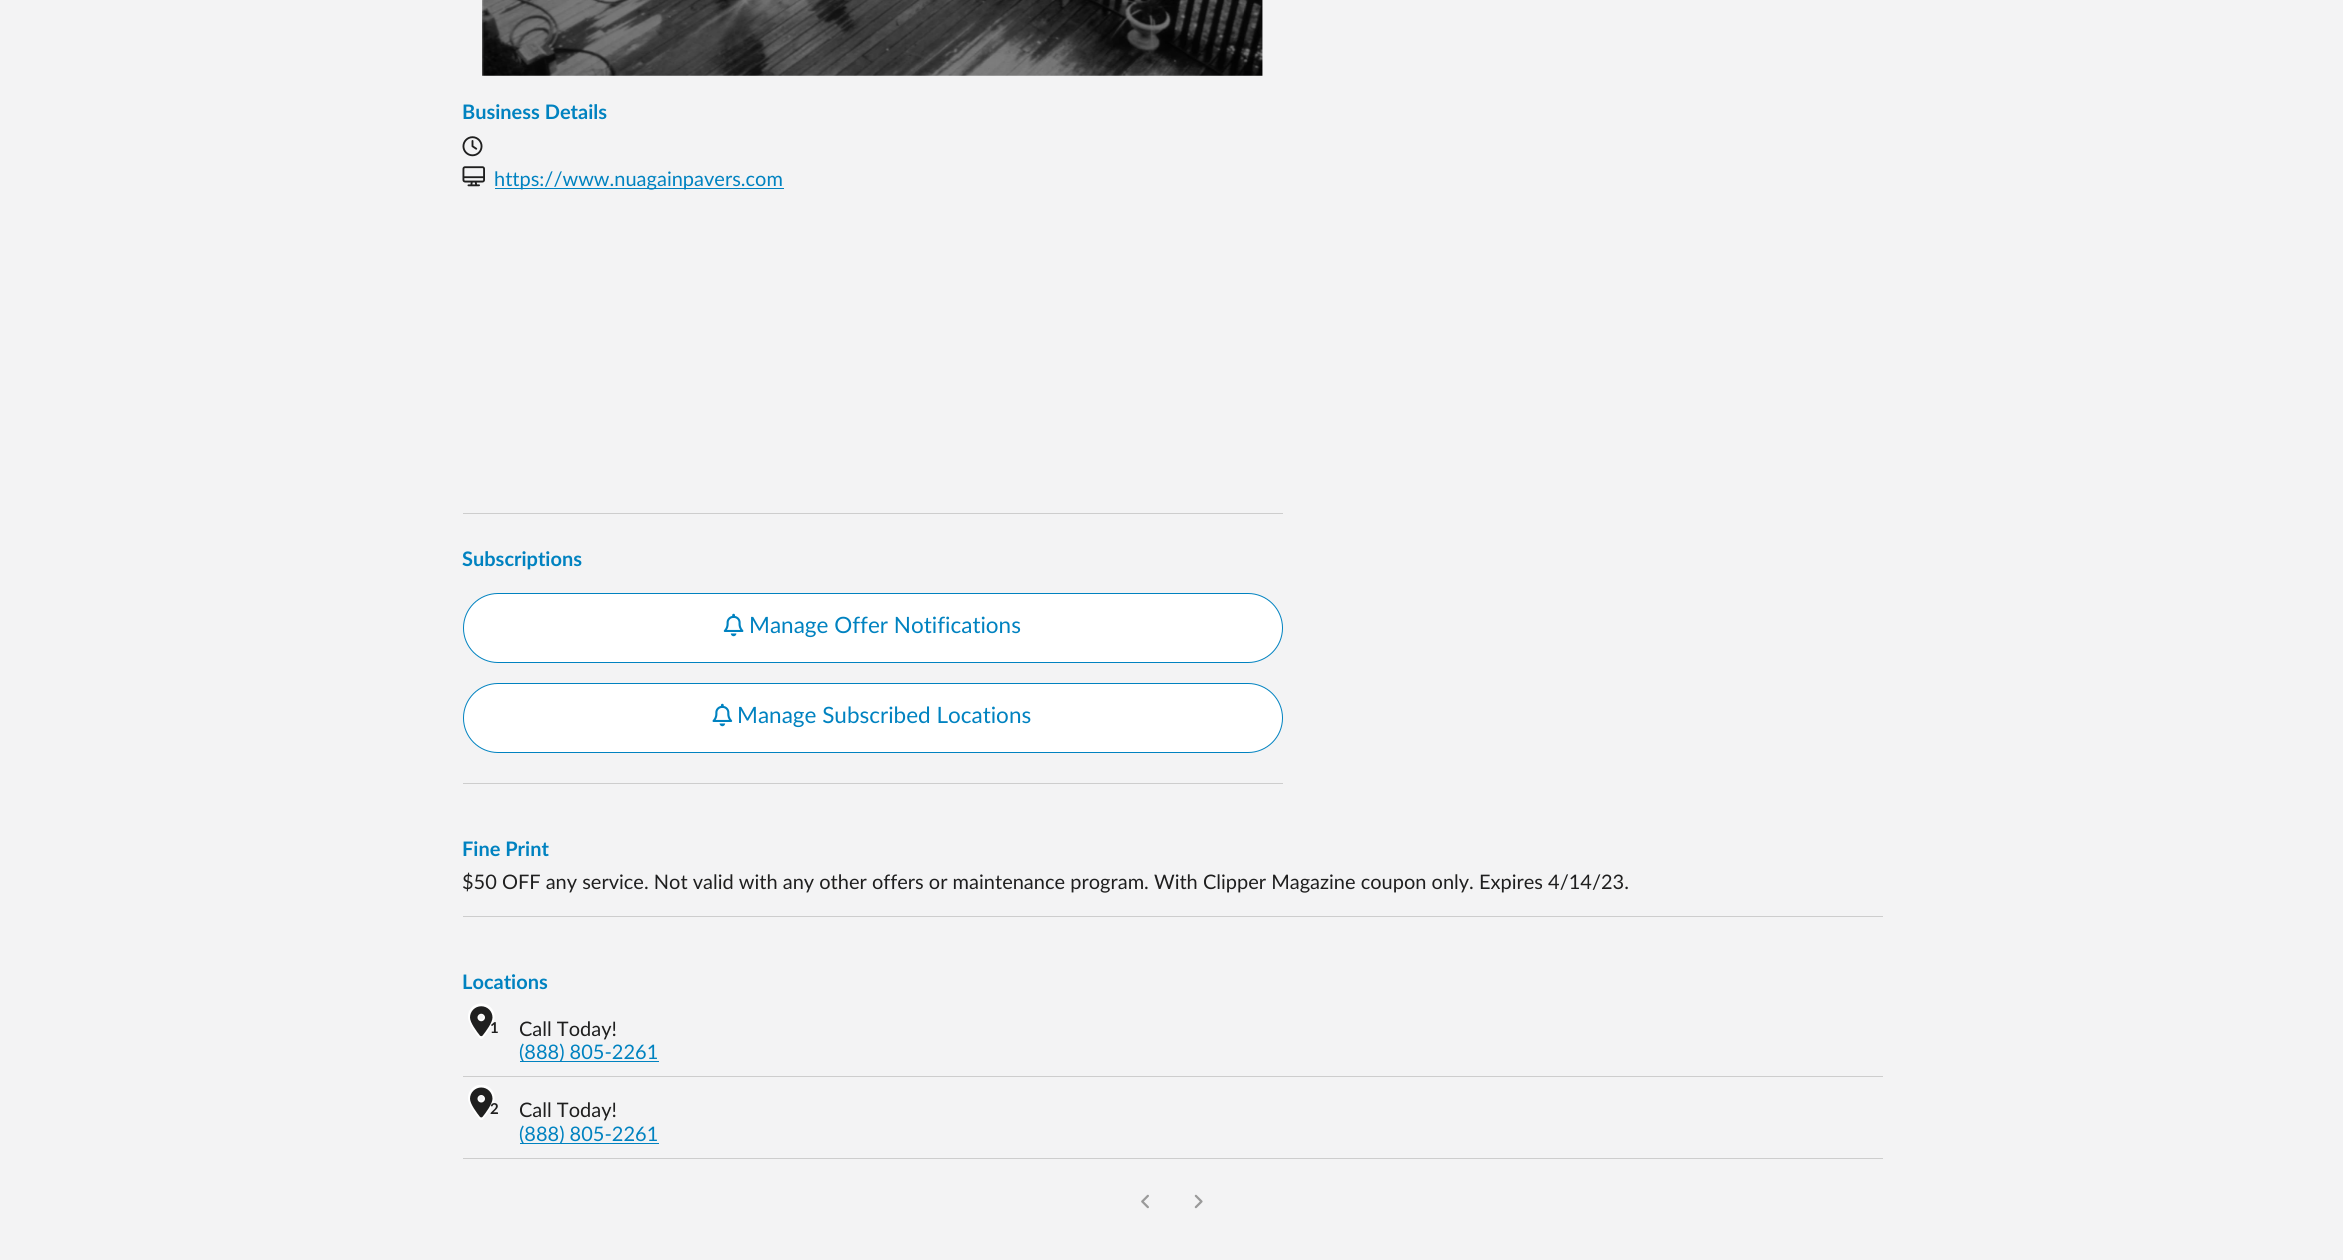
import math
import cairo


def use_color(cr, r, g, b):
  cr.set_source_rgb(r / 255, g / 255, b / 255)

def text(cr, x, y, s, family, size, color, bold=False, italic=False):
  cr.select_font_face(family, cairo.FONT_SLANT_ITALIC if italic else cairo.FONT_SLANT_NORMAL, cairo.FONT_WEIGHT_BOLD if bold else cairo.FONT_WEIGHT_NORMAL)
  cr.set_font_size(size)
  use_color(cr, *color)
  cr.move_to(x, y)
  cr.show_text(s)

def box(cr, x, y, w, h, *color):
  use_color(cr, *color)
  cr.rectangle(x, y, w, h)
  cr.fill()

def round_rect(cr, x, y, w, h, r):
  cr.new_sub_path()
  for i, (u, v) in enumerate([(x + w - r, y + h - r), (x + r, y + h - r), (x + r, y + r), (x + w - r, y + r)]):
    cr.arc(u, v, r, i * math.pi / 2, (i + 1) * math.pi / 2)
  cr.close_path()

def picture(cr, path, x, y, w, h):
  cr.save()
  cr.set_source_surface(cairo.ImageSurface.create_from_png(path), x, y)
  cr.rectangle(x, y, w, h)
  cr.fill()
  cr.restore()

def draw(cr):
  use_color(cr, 243, 243, 244)
  cr.paint()
  picture(cr, "img_01.png", 482, 0, 781, 76)
  box(cr, 463, 513, 820, 1, 205, 205, 205)
  picture(cr, "img_02.png", 462, 136, 21, 21)
  picture(cr, "img_03.png", 462, 166, 23, 21)
  box(cr, 495, 188, 289, 1, 0, 130, 192)
  box(cr, 463, 783, 820, 1, 205, 205, 205)
  use_color(cr, 255, 255, 255)
  round_rect(cr, 463.5, 593.5, 819, 69, 34.5)
  cr.fill_preserve()
  use_color(cr, 0, 130, 192)
  cr.set_line_width(1)
  cr.stroke()
  picture(cr, "img_04.png", 723, 613, 21, 24)
  use_color(cr, 255, 255, 255)
  round_rect(cr, 463.5, 683.5, 819, 69, 34.5)
  cr.fill_preserve()
  use_color(cr, 0, 130, 192)
  cr.stroke()
  picture(cr, "img_05.png", 712, 703, 21, 24)
  box(cr, 463, 916, 1420, 1, 205, 205, 205)
  box(cr, 463, 1076, 1420, 1, 205, 205, 205)
  picture(cr, "img_06.png", 468, 1003, 27, 36)
  picture(cr, "img_08.png", 477, 1013, 8, 8)
  picture(cr, "img_07.png", 470, 1006, 23, 31)
  box(cr, 520, 1061, 139, 1, 0, 130, 192)
  box(cr, 463, 1158, 1420, 1, 205, 205, 205)
  picture(cr, "img_09.png", 468, 1085, 27, 35)
  picture(cr, "img_11.png", 477, 1095, 8, 8)
  picture(cr, "img_10.png", 470, 1087, 23, 31)
  box(cr, 520, 1143, 139, 1, 0, 130, 192)
  picture(cr, "img_12.png", 1141, 1194, 8, 15)
  picture(cr, "img_13.png", 1194, 1194, 9, 15)
  text(cr, 462, 119, "Business Details", "Lato", 20, (0, 130, 192), bold=True)
  text(cr, 494, 186, "https://www.nuagainpavers.com", "Lato", 20, (0, 130, 192))
  text(cr, 462, 566, "Subscriptions", "Lato", 20, (0, 130, 192), bold=True)
  text(cr, 749, 633, "Manage Offer Notifications", "Lato", 22.5, (0, 130, 192))
  text(cr, 737, 723, "Manage Subscribed Locations", "Lato", 22.5, (0, 130, 192))
  text(cr, 462, 856, "Fine Print", "Lato", 20, (0, 130, 192), bold=True)
  text(cr, 462, 889, "$50 OFF any service. Not valid with any other offers or maintenance program. With Clipper Magazine coupon only. Expires 4/14/23.", "Lato", 20, (31, 31, 31))
  text(cr, 462, 989, "Locations", "Lato", 20, (0, 130, 192), bold=True)
  text(cr, 490, 1033, "1", "Lato", 15, (31, 31, 31), bold=True)
  text(cr, 519, 1036, "Call Today!", "Lato", 20, (31, 31, 31))
  text(cr, 519, 1059, "(888) 805-2261", "Lato", 20, (0, 130, 192))
  text(cr, 490, 1114, "2", "Lato", 15, (31, 31, 31), bold=True)
  text(cr, 519, 1117, "Call Today!", "Lato", 20, (31, 31, 31))
  text(cr, 519, 1141, "(888) 805-2261", "Lato", 20, (0, 130, 192))


surface = cairo.ImageSurface(cairo.FORMAT_RGB24, 2343, 1260)
cr = cairo.Context(surface)
options = cairo.FontOptions()
options.set_hint_metrics(cairo.HINT_METRICS_OFF)
options.set_hint_style(cairo.HINT_STYLE_NONE)
cr.set_font_options(options)
cr.set_miter_limit(4)
draw(cr)
surface.write_to_png("out.png")
